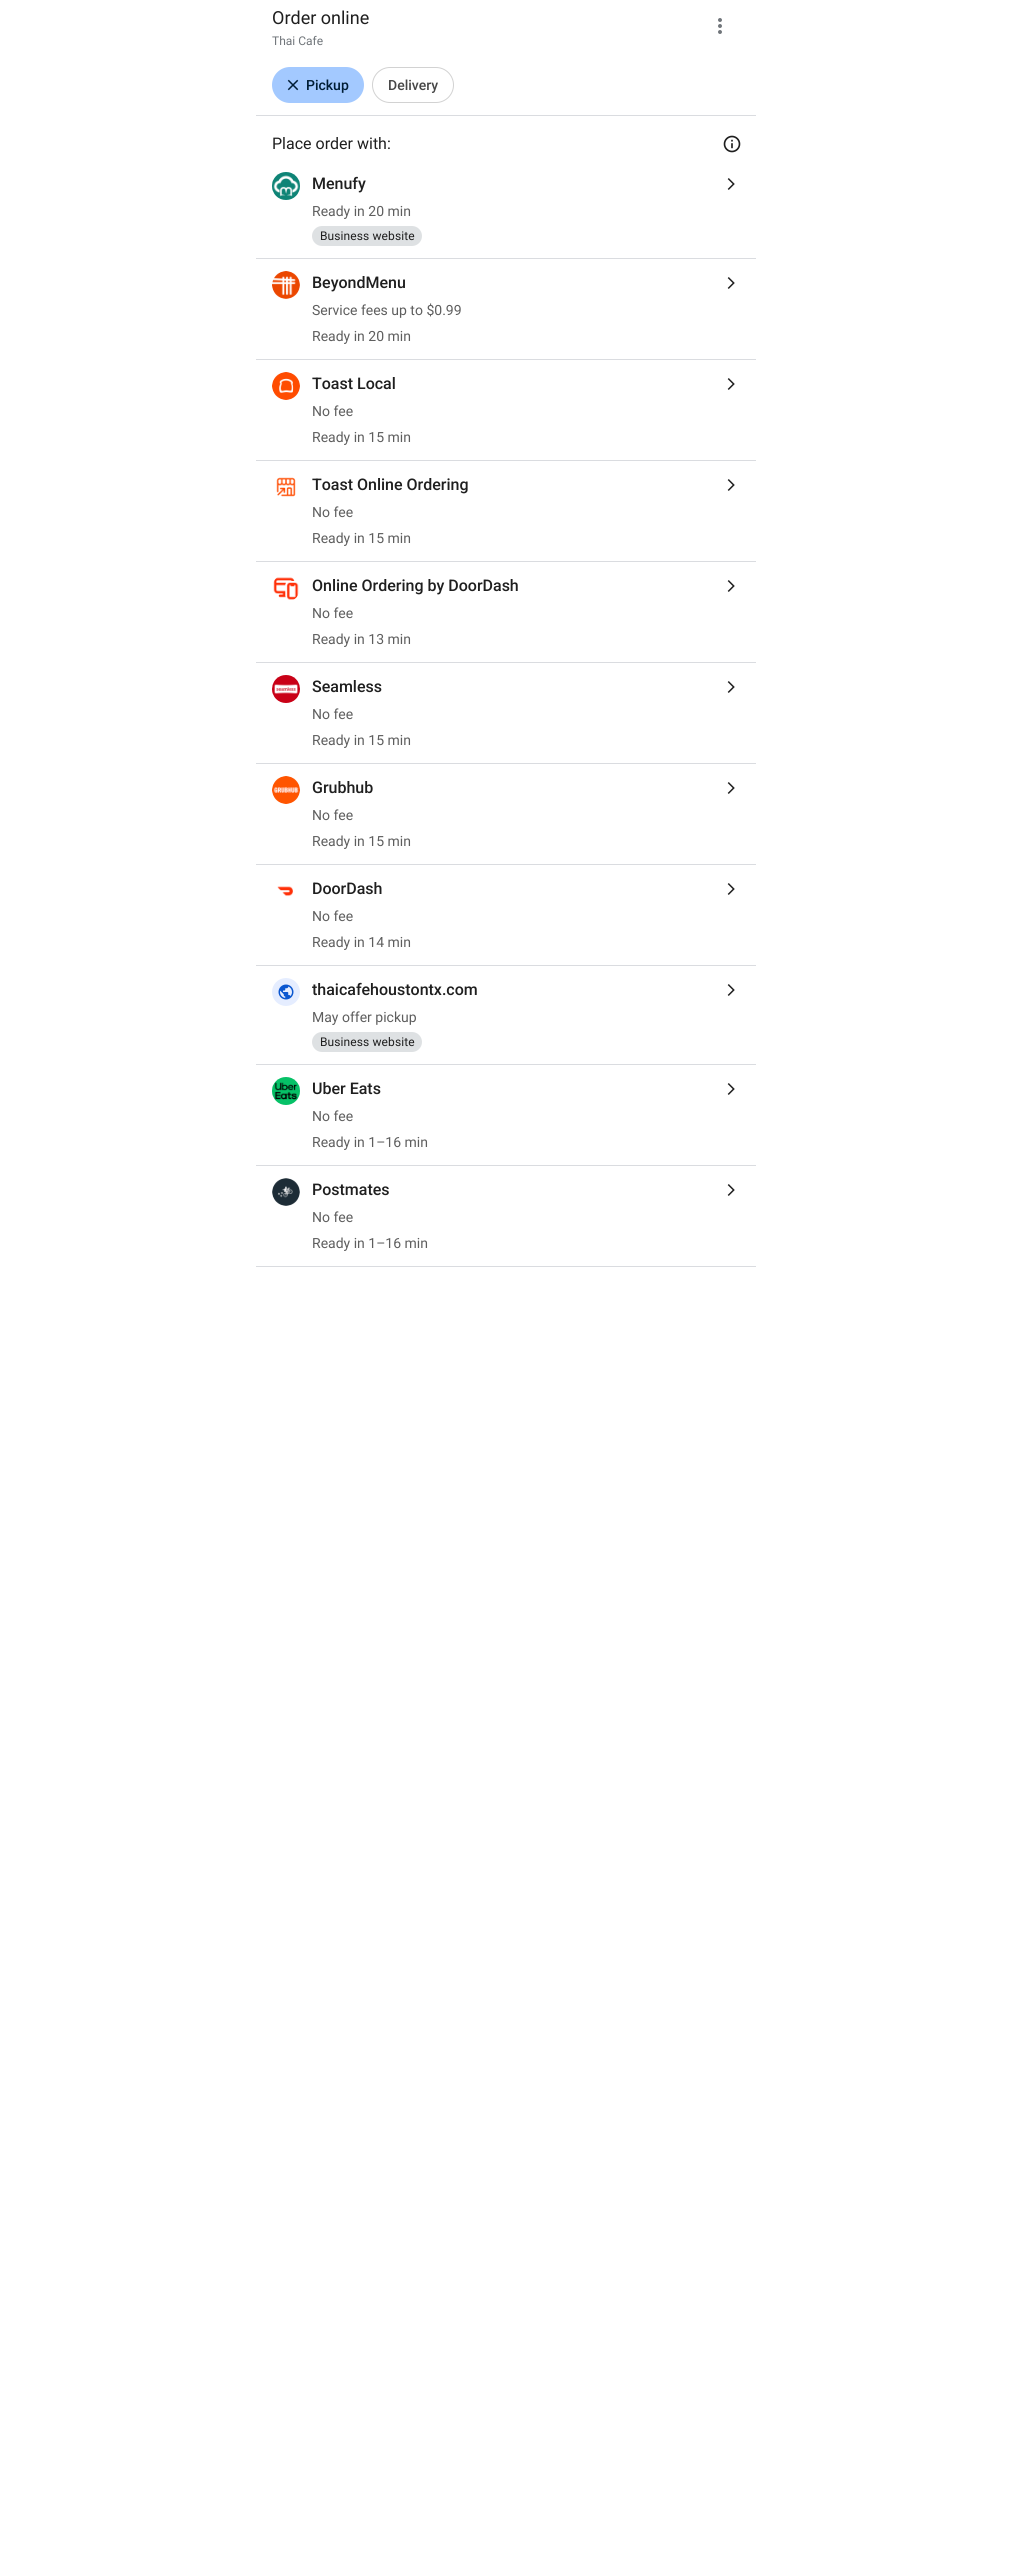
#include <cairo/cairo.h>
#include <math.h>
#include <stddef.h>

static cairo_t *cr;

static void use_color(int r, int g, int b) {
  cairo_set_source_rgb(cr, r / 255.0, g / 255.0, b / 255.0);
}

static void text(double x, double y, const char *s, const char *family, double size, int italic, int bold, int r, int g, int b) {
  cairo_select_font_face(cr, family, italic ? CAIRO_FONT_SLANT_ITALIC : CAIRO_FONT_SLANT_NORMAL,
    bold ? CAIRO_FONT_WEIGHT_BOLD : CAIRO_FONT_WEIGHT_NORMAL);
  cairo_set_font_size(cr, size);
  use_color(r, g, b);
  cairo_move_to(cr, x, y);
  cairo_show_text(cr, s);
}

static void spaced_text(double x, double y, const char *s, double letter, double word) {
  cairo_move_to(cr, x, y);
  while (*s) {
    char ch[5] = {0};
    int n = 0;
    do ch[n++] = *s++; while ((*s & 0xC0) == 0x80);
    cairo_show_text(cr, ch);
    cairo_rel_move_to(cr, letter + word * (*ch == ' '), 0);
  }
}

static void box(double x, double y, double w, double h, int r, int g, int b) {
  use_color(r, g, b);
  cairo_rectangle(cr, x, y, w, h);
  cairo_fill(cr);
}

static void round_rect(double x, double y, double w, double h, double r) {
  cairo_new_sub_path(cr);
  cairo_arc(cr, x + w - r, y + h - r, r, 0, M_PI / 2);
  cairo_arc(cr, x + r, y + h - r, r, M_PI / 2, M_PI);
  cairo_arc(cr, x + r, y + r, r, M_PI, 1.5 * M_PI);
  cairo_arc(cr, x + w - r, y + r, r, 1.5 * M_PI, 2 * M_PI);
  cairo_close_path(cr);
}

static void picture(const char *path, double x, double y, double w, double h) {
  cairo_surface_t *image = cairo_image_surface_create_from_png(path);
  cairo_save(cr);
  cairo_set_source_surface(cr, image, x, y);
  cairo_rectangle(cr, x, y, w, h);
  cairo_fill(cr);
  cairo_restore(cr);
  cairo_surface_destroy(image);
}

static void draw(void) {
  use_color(255, 255, 255);
  cairo_paint(cr);
  picture("img_01.png", 718, 18, 4, 16);
  use_color(163, 201, 255);
  round_rect(272, 67, 92, 36, 18);
  cairo_fill(cr);
  picture("img_02.png", 287, 79, 12, 12);
  round_rect(372.5, 67.5, 81, 35, 17.5);
  use_color(210, 210, 210);
  cairo_set_line_width(cr, 1);
  cairo_stroke(cr);
  box(256, 115, 500, 1, 218, 220, 224);
  picture("img_03.png", 723, 135, 18, 18);
  picture("img_04.png", 272, 172, 28, 28);
  picture("img_05.png", 727, 178, 8, 12);
  use_color(222, 225, 227);
  round_rect(312, 226, 110, 20, 10);
  cairo_fill(cr);
  box(256, 258, 500, 1, 218, 220, 224);
  picture("img_06.png", 272, 271, 28, 28);
  picture("img_05.png", 727, 277, 8, 12);
  box(256, 359, 500, 1, 218, 220, 224);
  picture("img_07.png", 272, 372, 28, 28);
  picture("img_05.png", 727, 378, 8, 12);
  box(256, 460, 500, 1, 218, 220, 224);
  picture("img_08.png", 276, 477, 20, 20);
  picture("img_05.png", 727, 479, 8, 12);
  box(256, 561, 500, 1, 218, 220, 224);
  picture("img_09.png", 273, 577, 26, 23);
  picture("img_05.png", 727, 580, 8, 12);
  box(256, 662, 500, 1, 218, 220, 224);
  picture("img_10.png", 272, 675, 28, 28);
  picture("img_05.png", 727, 681, 8, 12);
  box(256, 763, 500, 1, 218, 220, 224);
  picture("img_11.png", 272, 776, 28, 28);
  picture("img_05.png", 727, 782, 8, 12);
  box(256, 864, 500, 1, 218, 220, 224);
  picture("img_12.png", 277, 886, 16, 11);
  picture("img_05.png", 727, 883, 8, 12);
  box(256, 965, 500, 1, 218, 220, 224);
  use_color(229, 237, 255);
  cairo_arc(cr, 286, 992, 14, 0, 2 * M_PI);
  cairo_fill(cr);
  picture("img_13.png", 278, 984, 16, 16);
  picture("img_05.png", 727, 984, 8, 12);
  use_color(222, 225, 227);
  round_rect(312, 1032, 110, 20, 10);
  cairo_fill(cr);
  box(256, 1064, 500, 1, 218, 220, 224);
  picture("img_14.png", 272, 1077, 28, 28);
  picture("img_05.png", 727, 1083, 8, 12);
  box(256, 1165, 500, 1, 218, 220, 224);
  picture("img_15.png", 272, 1178, 28, 28);
  picture("img_05.png", 727, 1184, 8, 12);
  box(256, 1266, 500, 1, 218, 220, 224);
  text(272, 24, "Order online", "Roboto", 18, 0, 0, 31, 31, 31);
  text(272, 45, "Thai Cafe", "Roboto", 12, 0, 0, 112, 117, 122);
  text(306, 90, "Pickup", "Roboto Medium", 14, 0, 0, 0, 29, 53);
  text(388, 90, "Delivery", "Roboto Medium", 14, 0, 0, 71, 71, 71);
  text(272, 149, "Place order with:", "Roboto", 16, 0, 0, 31, 31, 31);
  text(312, 189, "Menufy", "Roboto Medium", 16, 0, 0, 31, 31, 31);
  text(312, 216, "Ready in 20 min", "Roboto", 14, 0, 0, 94, 94, 94);
  cairo_set_font_size(cr, 12);
  use_color(31, 31, 31);
  spaced_text(320, 240, "Business website", 0.1, 0);
  text(312, 288, "BeyondMenu", "Roboto Medium", 16, 0, 0, 31, 31, 31);
  text(312, 315, "Service fees up to $0.99", "Roboto", 14, 0, 0, 94, 94, 94);
  text(312, 341, "Ready in 20 min", "Roboto", 14, 0, 0, 94, 94, 94);
  text(312, 389, "Toast Local", "Roboto Medium", 16, 0, 0, 31, 31, 31);
  text(312, 416, "No fee", "Roboto", 14, 0, 0, 94, 94, 94);
  text(312, 442, "Ready in 15 min", "Roboto", 14, 0, 0, 94, 94, 94);
  text(312, 490, "Toast Online Ordering", "Roboto Medium", 16, 0, 0, 31, 31, 31);
  text(312, 517, "No fee", "Roboto", 14, 0, 0, 94, 94, 94);
  text(312, 543, "Ready in 15 min", "Roboto", 14, 0, 0, 94, 94, 94);
  text(312, 591, "Online Ordering by DoorDash", "Roboto Medium", 16, 0, 0, 31, 31, 31);
  text(312, 618, "No fee", "Roboto", 14, 0, 0, 94, 94, 94);
  text(312, 644, "Ready in 13 min", "Roboto", 14, 0, 0, 94, 94, 94);
  text(312, 692, "Seamless", "Roboto Medium", 16, 0, 0, 31, 31, 31);
  text(312, 719, "No fee", "Roboto", 14, 0, 0, 94, 94, 94);
  text(312, 745, "Ready in 15 min", "Roboto", 14, 0, 0, 94, 94, 94);
  text(312, 793, "Grubhub", "Roboto Medium", 16, 0, 0, 31, 31, 31);
  text(312, 820, "No fee", "Roboto", 14, 0, 0, 94, 94, 94);
  text(312, 846, "Ready in 15 min", "Roboto", 14, 0, 0, 94, 94, 94);
  text(312, 894, "DoorDash", "Roboto Medium", 16, 0, 0, 31, 31, 31);
  text(312, 921, "No fee", "Roboto", 14, 0, 0, 94, 94, 94);
  text(312, 947, "Ready in 14 min", "Roboto", 14, 0, 0, 94, 94, 94);
  text(312, 995, "thaicafehoustontx.com", "Roboto Medium", 16, 0, 0, 31, 31, 31);
  text(312, 1022, "May offer pickup", "Roboto", 14, 0, 0, 94, 94, 94);
  cairo_set_font_size(cr, 12);
  use_color(31, 31, 31);
  spaced_text(320, 1046, "Business website", 0.1, 0);
  text(312, 1094, "Uber Eats", "Roboto Medium", 16, 0, 0, 31, 31, 31);
  text(312, 1121, "No fee", "Roboto", 14, 0, 0, 94, 94, 94);
  text(312, 1147, "Ready in 1–16 min", "Roboto", 14, 0, 0, 94, 94, 94);
  text(312, 1195, "Postmates", "Roboto Medium", 16, 0, 0, 31, 31, 31);
  text(312, 1222, "No fee", "Roboto", 14, 0, 0, 94, 94, 94);
  text(312, 1248, "Ready in 1–16 min", "Roboto", 14, 0, 0, 94, 94, 94);
}

int main(void) {
  cairo_surface_t *surface = cairo_image_surface_create(CAIRO_FORMAT_RGB24, 1011, 2549);
  cr = cairo_create(surface);
  cairo_font_options_t *options = cairo_font_options_create();
  cairo_font_options_set_hint_metrics(options, CAIRO_HINT_METRICS_OFF);
  cairo_font_options_set_hint_style(options, CAIRO_HINT_STYLE_NONE);
  cairo_set_font_options(cr, options);
  cairo_set_miter_limit(cr, 4);
  draw();
  cairo_surface_write_to_png(surface, "out.png");
  cairo_font_options_destroy(options);
  cairo_destroy(cr);
  cairo_surface_destroy(surface);
  return 0;
}
